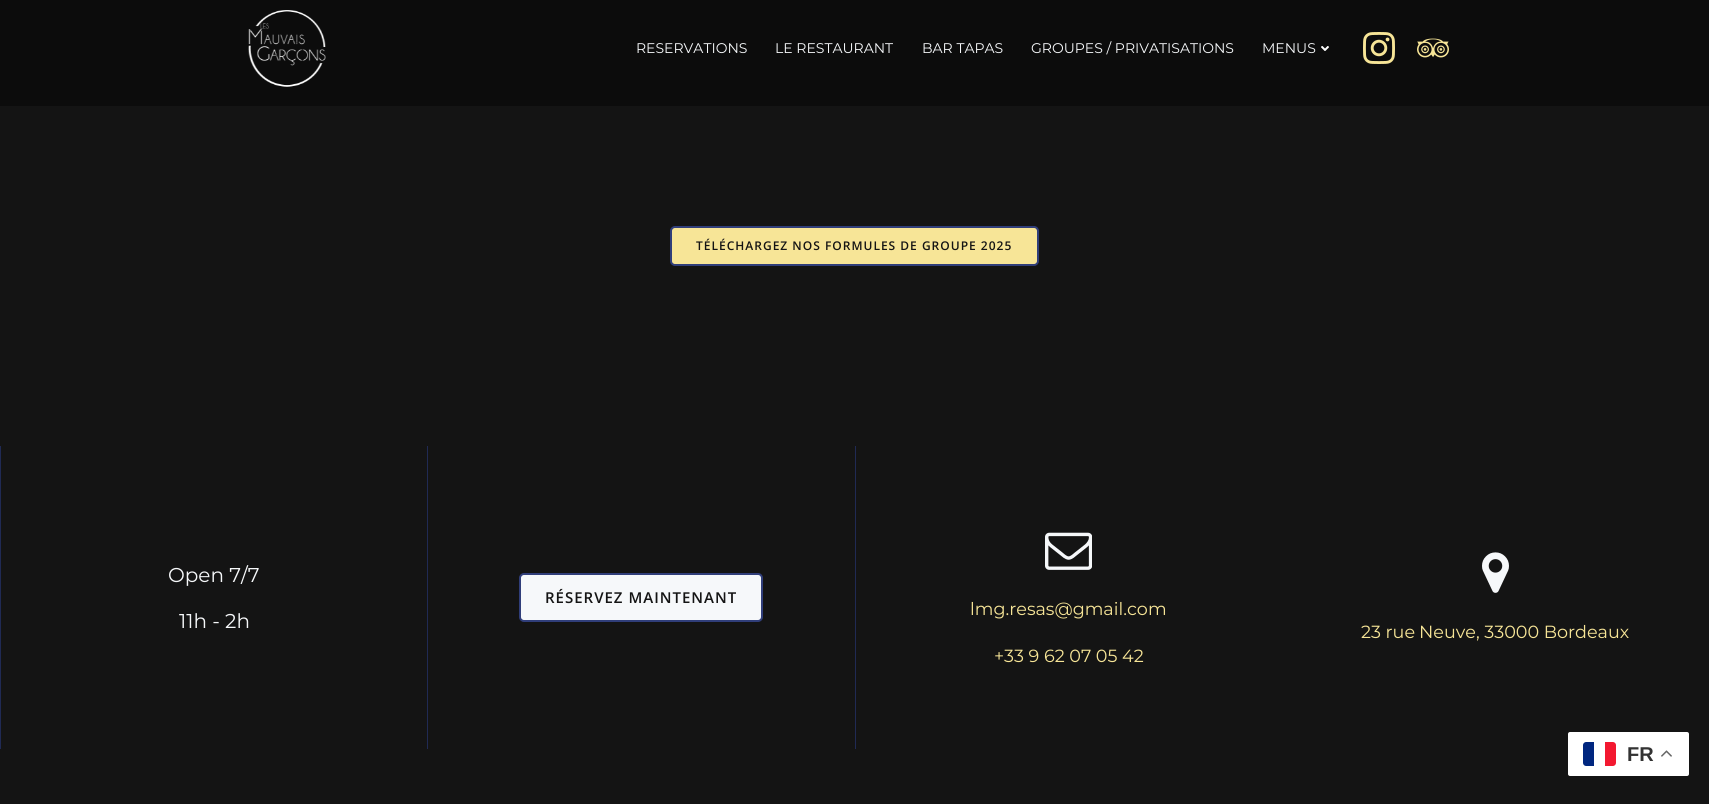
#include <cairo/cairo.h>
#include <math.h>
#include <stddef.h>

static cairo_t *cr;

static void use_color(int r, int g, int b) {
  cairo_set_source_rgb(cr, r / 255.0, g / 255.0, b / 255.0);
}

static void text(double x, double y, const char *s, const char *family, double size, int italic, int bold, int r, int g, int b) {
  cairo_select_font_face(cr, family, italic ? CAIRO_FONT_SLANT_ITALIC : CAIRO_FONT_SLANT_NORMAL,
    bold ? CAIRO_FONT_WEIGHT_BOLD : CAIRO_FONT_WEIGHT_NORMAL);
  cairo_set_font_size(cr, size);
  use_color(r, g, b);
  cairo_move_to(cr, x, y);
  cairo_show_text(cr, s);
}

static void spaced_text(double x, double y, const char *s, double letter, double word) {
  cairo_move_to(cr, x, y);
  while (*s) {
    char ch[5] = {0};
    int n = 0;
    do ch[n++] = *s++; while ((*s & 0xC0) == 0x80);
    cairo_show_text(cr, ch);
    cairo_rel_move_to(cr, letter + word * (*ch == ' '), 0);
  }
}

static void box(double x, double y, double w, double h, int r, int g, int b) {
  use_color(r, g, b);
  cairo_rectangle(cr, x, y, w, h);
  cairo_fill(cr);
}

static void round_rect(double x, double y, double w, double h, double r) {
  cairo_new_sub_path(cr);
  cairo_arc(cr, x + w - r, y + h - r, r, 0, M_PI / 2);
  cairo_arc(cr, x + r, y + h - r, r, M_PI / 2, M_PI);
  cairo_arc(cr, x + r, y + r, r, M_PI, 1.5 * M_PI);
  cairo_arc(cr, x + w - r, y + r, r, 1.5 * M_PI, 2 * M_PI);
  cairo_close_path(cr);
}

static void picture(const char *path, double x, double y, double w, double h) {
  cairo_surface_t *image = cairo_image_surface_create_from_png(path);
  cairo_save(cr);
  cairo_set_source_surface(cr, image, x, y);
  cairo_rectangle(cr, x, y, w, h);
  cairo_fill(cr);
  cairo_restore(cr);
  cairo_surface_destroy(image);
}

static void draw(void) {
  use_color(20, 20, 20);
  cairo_paint(cr);
  box(0, 0, 1709, 106, 12, 12, 12);
  picture("img_01.png", 248, 10, 78, 77);
  picture("img_02.png", 1321, 46, 8, 5);
  picture("img_03.png", 1363, 32, 32, 32);
  picture("img_04.png", 1417, 38, 32, 20);
  use_color(247, 229, 151);
  round_rect(671, 227, 367, 38, 4);
  cairo_fill_preserve(cr);
  use_color(48, 62, 122);
  cairo_stroke(cr);
  box(0, 446, 1, 303, 32, 42, 84);
  box(427, 446, 1, 303, 32, 42, 84);
  use_color(246, 248, 250);
  round_rect(520, 574, 242, 47, 4);
  cairo_fill_preserve(cr);
  use_color(48, 62, 122);
  cairo_stroke(cr);
  box(855, 446, 1, 303, 32, 42, 84);
  picture("img_05.png", 1045, 532, 47, 38);
  picture("img_06.png", 1482, 552, 27, 41);
  use_color(255, 255, 255);
  round_rect(1568, 732, 121, 44, 2);
  cairo_fill(cr);
  use_color(0, 38, 127);
  cairo_new_path(cr);
  cairo_move_to(cr, 1586, 742);
  cairo_line_to(cr, 1594, 742);
  cairo_line_to(cr, 1594, 766);
  cairo_line_to(cr, 1586, 766);
  cairo_curve_to(cr, 1584.5, 766, 1583, 764.5, 1583, 763);
  cairo_line_to(cr, 1583, 745);
  cairo_curve_to(cr, 1583, 743.5, 1584.5, 742, 1586, 742);
  cairo_close_path(cr);
  cairo_fill(cr);
  use_color(243, 24, 48);
  cairo_new_path(cr);
  cairo_move_to(cr, 1605, 742);
  cairo_line_to(cr, 1613, 742);
  cairo_curve_to(cr, 1614.5, 742, 1616, 743.5, 1616, 745);
  cairo_line_to(cr, 1616, 763);
  cairo_curve_to(cr, 1616, 764.5, 1614.5, 766, 1613, 766);
  cairo_line_to(cr, 1605, 766);
  cairo_close_path(cr);
  cairo_fill(cr);
  picture("img_07.png", 1661, 750, 11, 7);
  text(636, 53, "RESERVATIONS", "Montserrat", 14, 0, 0, 246, 248, 250);
  text(775, 53, "LE RESTAURANT", "Montserrat", 14, 0, 0, 246, 248, 250);
  text(922, 53, "BAR TAPAS", "Montserrat", 14, 0, 0, 246, 248, 250);
  text(1031, 53, "GROUPES / PRIVATISATIONS", "Montserrat", 14, 0, 0, 246, 248, 250);
  text(1262, 53, "MENUS", "Montserrat", 14, 0, 0, 246, 248, 250);
  cairo_select_font_face(cr, "Open Sans SemiBold", CAIRO_FONT_SLANT_NORMAL, CAIRO_FONT_WEIGHT_NORMAL);
  cairo_set_font_size(cr, 12);
  use_color(20, 20, 20);
  spaced_text(696, 250, "TÉLÉCHARGEZ NOS FORMULES DE GROUPE 2025", 1, 0);
  text(168, 582, "Open 7/7", "Montserrat", 20, 0, 0, 246, 248, 250);
  text(179, 628, "11h - 2h", "Montserrat", 20, 0, 0, 246, 248, 250);
  cairo_select_font_face(cr, "Open Sans SemiBold", CAIRO_FONT_SLANT_NORMAL, CAIRO_FONT_WEIGHT_NORMAL);
  cairo_set_font_size(cr, 15);
  use_color(20, 20, 20);
  spaced_text(545, 603, "RÉSERVEZ MAINTENANT", 1, 0);
  text(970, 615, "lmg.resas@gmail.com", "Montserrat", 17.6, 0, 0, 247, 229, 151);
  text(994, 662, "+33 9 62 07 05 42", "Montserrat", 17.6, 0, 0, 247, 229, 151);
  text(1361, 638, "23 rue", "Montserrat", 17.6, 0, 0, 247, 229, 151);
  text(1419, 638, "Neuve, 33000 Bordeaux", "Montserrat", 17.6, 0, 0, 247, 229, 151);
  text(1627, 761, "FR", "Liberation Sans", 20, 0, 1, 51, 51, 51);
}

int main(void) {
  cairo_surface_t *surface = cairo_image_surface_create(CAIRO_FORMAT_RGB24, 1709, 804);
  cr = cairo_create(surface);
  cairo_font_options_t *options = cairo_font_options_create();
  cairo_font_options_set_hint_metrics(options, CAIRO_HINT_METRICS_OFF);
  cairo_font_options_set_hint_style(options, CAIRO_HINT_STYLE_NONE);
  cairo_set_font_options(cr, options);
  cairo_set_miter_limit(cr, 4);
  draw();
  cairo_surface_write_to_png(surface, "out.png");
  cairo_font_options_destroy(options);
  cairo_destroy(cr);
  cairo_surface_destroy(surface);
  return 0;
}
